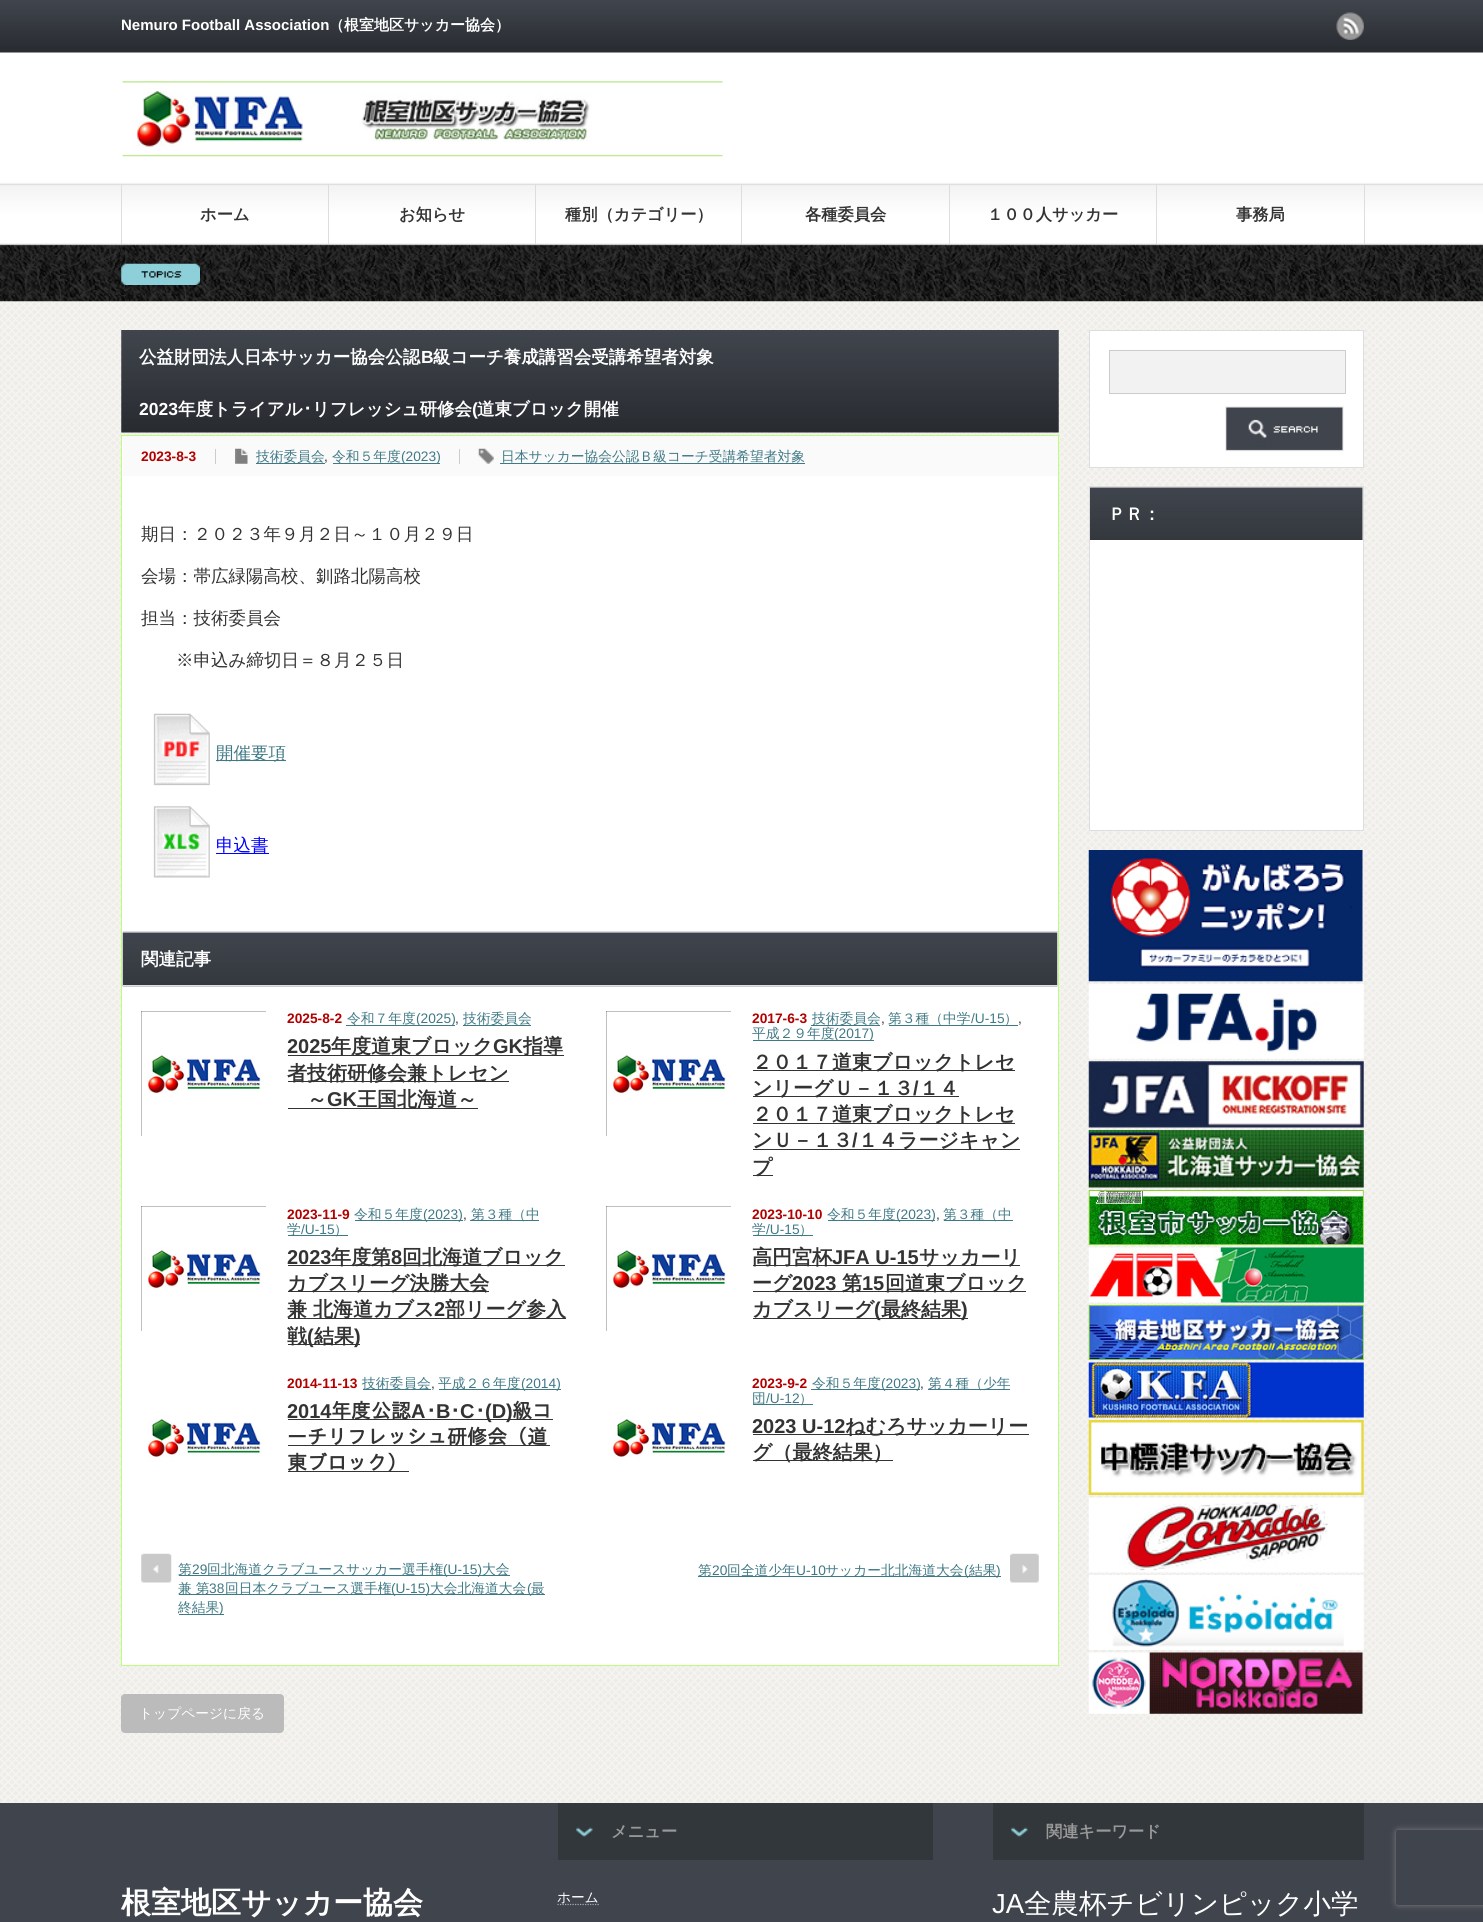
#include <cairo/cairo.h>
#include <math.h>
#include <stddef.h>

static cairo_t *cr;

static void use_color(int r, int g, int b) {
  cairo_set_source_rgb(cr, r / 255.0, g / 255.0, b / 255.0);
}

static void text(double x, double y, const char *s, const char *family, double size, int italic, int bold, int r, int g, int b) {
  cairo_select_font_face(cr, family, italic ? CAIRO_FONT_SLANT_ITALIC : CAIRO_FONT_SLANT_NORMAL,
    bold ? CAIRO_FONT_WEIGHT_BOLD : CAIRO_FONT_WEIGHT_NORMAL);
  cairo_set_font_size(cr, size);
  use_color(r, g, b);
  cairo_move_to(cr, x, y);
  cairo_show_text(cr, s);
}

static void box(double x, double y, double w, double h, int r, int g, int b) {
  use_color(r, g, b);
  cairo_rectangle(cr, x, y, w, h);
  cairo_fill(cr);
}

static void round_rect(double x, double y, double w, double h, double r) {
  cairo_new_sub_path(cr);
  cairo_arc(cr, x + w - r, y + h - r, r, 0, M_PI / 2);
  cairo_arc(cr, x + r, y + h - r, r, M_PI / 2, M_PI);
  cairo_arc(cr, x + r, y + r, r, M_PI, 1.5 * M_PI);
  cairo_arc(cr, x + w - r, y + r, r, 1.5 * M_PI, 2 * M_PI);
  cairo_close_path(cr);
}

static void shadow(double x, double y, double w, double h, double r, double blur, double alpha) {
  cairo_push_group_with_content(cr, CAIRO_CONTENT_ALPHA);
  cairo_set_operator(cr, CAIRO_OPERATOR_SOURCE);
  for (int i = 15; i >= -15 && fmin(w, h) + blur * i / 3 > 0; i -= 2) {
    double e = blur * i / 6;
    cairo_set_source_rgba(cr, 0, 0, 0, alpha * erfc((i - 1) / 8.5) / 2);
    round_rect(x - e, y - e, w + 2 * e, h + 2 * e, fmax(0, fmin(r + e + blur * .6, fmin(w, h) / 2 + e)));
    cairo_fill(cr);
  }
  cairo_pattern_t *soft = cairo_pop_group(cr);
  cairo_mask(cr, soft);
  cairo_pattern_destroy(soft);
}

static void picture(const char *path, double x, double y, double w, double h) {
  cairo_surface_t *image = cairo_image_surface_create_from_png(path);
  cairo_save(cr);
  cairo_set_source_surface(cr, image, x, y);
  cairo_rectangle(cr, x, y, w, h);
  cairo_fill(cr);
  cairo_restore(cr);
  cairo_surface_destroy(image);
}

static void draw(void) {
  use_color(255, 255, 255);
  cairo_paint(cr);
  picture("img_01.png", 0, 301, 1483, 1502);
  picture("img_02.png", 0, 0, 1483, 302);
  picture("img_03.png", 1336, 12, 28, 28);
  picture("img_04.png", 122, 81, 601, 76);
  box(1364, 185, 1, 59, 221, 221, 221);
  box(121, 185, 1, 59, 221, 221, 221);
  box(328, 185, 1, 59, 221, 221, 221);
  box(535, 185, 1, 59, 221, 221, 221);
  box(741, 185, 1, 59, 221, 221, 221);
  box(949, 185, 1, 59, 221, 221, 221);
  box(1156, 185, 1, 59, 221, 221, 221);
  picture("img_05.png", 121, 263, 79, 22);
  picture("img_06.png", 121, 330, 938, 103);
  use_color(255, 255, 255);
  cairo_rectangle(cr, 121.5, 435.5, 937, 1230);
  cairo_fill_preserve(cr);
  use_color(187, 255, 119);
  cairo_set_line_width(cr, 1);
  cairo_stroke(cr);
  box(123, 436, 935, 40, 250, 250, 250);
  box(215, 449, 1, 15, 204, 204, 204);
  picture("img_07.png", 235, 448, 13, 16);
  box(459, 449, 1, 15, 204, 204, 204);
  box(256, 463, 69, 1, 63, 121, 133);
  box(333, 463, 107, 1, 63, 121, 133);
  picture("img_08.png", 478, 448, 16, 16);
  box(500, 463, 305, 1, 63, 121, 133);
  picture("img_09.png", 153, 713, 57, 73);
  box(216, 760, 70, 1, 63, 121, 133);
  picture("img_10.png", 153, 806, 57, 72);
  box(216, 853, 53, 1, 0, 0, 255);
  picture("img_11.png", 122, 932, 936, 55);
  box(123, 931, 935, 1, 221, 221, 221);
  box(123, 985, 935, 1, 221, 221, 221);
  box(141, 1011, 125, 125, 0, 0, 0);
  picture("img_12.png", 141, 1011, 125, 125);
  box(346, 1025, 109, 1, 63, 121, 133);
  box(463, 1025, 68, 1, 63, 121, 133);
  box(288, 1055, 276, 1, 51, 51, 51);
  box(288, 1081, 221, 1, 51, 51, 51);
  box(288, 1108, 190, 1, 51, 51, 51);
  box(606, 1011, 125, 125, 0, 0, 0);
  picture("img_12.png", 606, 1011, 125, 125);
  box(811, 1025, 69, 1, 63, 121, 133);
  box(889, 1025, 129, 1, 63, 121, 133);
  box(753, 1040, 121, 1, 63, 121, 133);
  box(753, 1070, 262, 1, 51, 51, 51);
  box(753, 1096, 206, 1, 51, 51, 51);
  box(753, 1123, 262, 1, 51, 51, 51);
  box(753, 1149, 267, 1, 51, 51, 51);
  box(753, 1175, 20, 1, 51, 51, 51);
  box(141, 1206, 125, 125, 0, 0, 0);
  picture("img_13.png", 141, 1206, 125, 125);
  box(355, 1220, 108, 1, 63, 121, 133);
  box(470, 1220, 69, 1, 63, 121, 133);
  box(288, 1235, 60, 1, 63, 121, 133);
  box(288, 1265, 277, 1, 51, 51, 51);
  box(288, 1291, 201, 1, 51, 51, 51);
  box(288, 1318, 278, 1, 51, 51, 51);
  box(288, 1344, 72, 1, 51, 51, 51);
  box(606, 1206, 125, 125, 0, 0, 0);
  picture("img_13.png", 606, 1206, 125, 125);
  box(828, 1220, 107, 1, 63, 121, 133);
  box(944, 1220, 69, 1, 63, 121, 133);
  box(753, 1235, 60, 1, 63, 121, 133);
  box(753, 1265, 267, 1, 51, 51, 51);
  box(753, 1291, 273, 1, 51, 51, 51);
  box(753, 1318, 215, 1, 51, 51, 51);
  picture("img_14.png", 141, 1375, 125, 125);
  box(363, 1389, 68, 1, 63, 121, 133);
  box(439, 1389, 122, 1, 63, 121, 133);
  box(288, 1419, 265, 1, 51, 51, 51);
  box(288, 1445, 262, 1, 51, 51, 51);
  box(288, 1471, 121, 1, 51, 51, 51);
  picture("img_14.png", 606, 1375, 125, 125);
  box(811, 1389, 109, 1, 63, 121, 133);
  box(928, 1389, 82, 1, 63, 121, 133);
  box(753, 1404, 60, 1, 63, 121, 133);
  box(753, 1434, 276, 1, 51, 51, 51);
  box(753, 1460, 140, 1, 51, 51, 51);
  picture("img_15.png", 141, 1553, 31, 30);
  box(179, 1575, 331, 1, 63, 121, 133);
  box(179, 1594, 366, 1, 63, 121, 133);
  box(179, 1614, 45, 1, 63, 121, 133);
  picture("img_16.png", 1010, 1553, 29, 30);
  box(698, 1576, 303, 1, 63, 121, 133);
  use_color(187, 187, 187);
  round_rect(121, 1694, 163, 39, 4);
  cairo_fill(cr);
  use_color(255, 255, 255);
  cairo_rectangle(cr, 1089.5, 330.5, 274, 137);
  cairo_fill_preserve(cr);
  use_color(221, 221, 221);
  cairo_stroke(cr);
  use_color(242, 242, 242);
  cairo_rectangle(cr, 1109.5, 350.5, 236, 43);
  cairo_fill_preserve(cr);
  use_color(204, 204, 204);
  cairo_stroke(cr);
  picture("img_17.png", 1225, 406, 119, 46);
  use_color(255, 255, 255);
  cairo_rectangle(cr, 1089.5, 486.5, 274, 344);
  cairo_fill_preserve(cr);
  use_color(221, 221, 221);
  cairo_stroke(cr);
  picture("img_18.png", 1090, 487, 273, 53);
  picture("img_19.png", 1088, 850, 275, 132);
  picture("img_20.png", 1088, 983, 276, 76);
  picture("img_21.png", 1088, 1061, 276, 67);
  picture("img_22.png", 1088, 1130, 276, 58);
  picture("img_23.png", 1088, 1190, 276, 55);
  picture("img_24.png", 1088, 1247, 276, 56);
  picture("img_25.png", 1088, 1305, 276, 55);
  picture("img_26.png", 1088, 1362, 276, 56);
  picture("img_27.png", 1088, 1420, 276, 75);
  picture("img_28.png", 1088, 1497, 276, 76);
  picture("img_29.png", 1088, 1575, 276, 75);
  picture("img_30.png", 1088, 1652, 275, 62);
  box(0, 1803, 1483, 119, 64, 68, 77);
  box(558, 1803, 375, 57, 50, 55, 59);
  picture("img_31.png", 576, 1827, 17, 10);
  cairo_new_path(cr);
  cairo_move_to(cr, 557.5, 1904.5);
  cairo_line_to(cr, 599, 1904.5);
  use_color(170, 170, 170);
  cairo_set_line_width(cr, 1.2);
  cairo_set_dash(cr, (double[]){1.25, 1.25}, 2, 0);
  cairo_stroke(cr);
  box(993, 1803, 371, 57, 50, 55, 59);
  picture("img_32.png", 1011, 1827, 17, 10);
  cairo_save(cr);
  cairo_set_fill_rule(cr, CAIRO_FILL_RULE_EVEN_ODD);
  cairo_new_path(cr);
  cairo_move_to(cr, 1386, 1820);
  cairo_line_to(cr, 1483, 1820);
  cairo_line_to(cr, 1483, 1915);
  cairo_line_to(cr, 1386, 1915);
  cairo_close_path(cr);
  cairo_move_to(cr, 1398.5, 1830);
  cairo_line_to(cr, 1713.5, 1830);
  cairo_curve_to(cr, 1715, 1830, 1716, 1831, 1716, 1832.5);
  cairo_line_to(cr, 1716, 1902.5);
  cairo_curve_to(cr, 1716, 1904, 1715, 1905, 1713.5, 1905);
  cairo_line_to(cr, 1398.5, 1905);
  cairo_curve_to(cr, 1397, 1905, 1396, 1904, 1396, 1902.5);
  cairo_line_to(cr, 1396, 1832.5);
  cairo_curve_to(cr, 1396, 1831, 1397, 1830, 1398.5, 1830);
  cairo_close_path(cr);
  cairo_clip(cr);
  use_color(128, 128, 128);
  shadow(1396, 1830, 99, 75, 2.5, 3, 1);
  cairo_restore(cr);
  text(121, 30, "Nemuro Football Association", "Liberation Sans", 15, 0, 1, 255, 255, 255);
  text(329, 30, "（根室地区サッカー協会）", "WenQuanYi Zen Hei", 15, 0, 1, 255, 255, 255);
  text(200, 220, "ホーム", "WenQuanYi Zen Hei", 16.25, 0, 1, 51, 51, 51);
  text(399, 220, "お知らせ", "WenQuanYi Zen Hei", 16.25, 0, 1, 51, 51, 51);
  text(565, 220, "種別（カテゴリー）", "WenQuanYi Zen Hei", 16.25, 0, 1, 51, 51, 51);
  text(805, 220, "各種委員会", "WenQuanYi Zen Hei", 16.25, 0, 1, 51, 51, 51);
  text(987, 220, "１００人サッカー", "WenQuanYi Zen Hei", 16.25, 0, 1, 51, 51, 51);
  text(1236, 220, "事務局", "WenQuanYi Zen Hei", 16.25, 0, 1, 51, 51, 51);
  text(139, 363, "公益財団法人日本サッカー協会公認", "WenQuanYi Zen Hei", 17.5, 0, 1, 255, 255, 255);
  text(421, 363, "B", "Liberation Sans", 17.5, 0, 1, 255, 255, 255);
  text(433, 363, "級コーチ養成講習会受講希望者対象", "WenQuanYi Zen Hei", 17.5, 0, 1, 255, 255, 255);
  text(139, 415, "2023", "Liberation Sans", 17.5, 0, 1, 255, 255, 255);
  text(178, 415, "年度トライアル", "WenQuanYi Zen Hei", 17.5, 0, 1, 255, 255, 255);
  text(303, 415, "･", "IPAGothic", 17.5, 0, 1, 255, 255, 255);
  text(312, 415, "リフレッシュ研修会", "WenQuanYi Zen Hei", 17.5, 0, 1, 255, 255, 255);
  text(472, 415, "(", "Liberation Sans", 17.5, 0, 1, 255, 255, 255);
  text(477, 415, "道東ブロック開催", "WenQuanYi Zen Hei", 17.5, 0, 1, 255, 255, 255);
  text(141, 461, "2023-8-3", "Liberation Sans", 13.75, 0, 1, 178, 0, 0);
  text(256, 461, "技術委員会", "WenQuanYi Zen Hei Medium", 13.75, 0, 0, 63, 121, 133);
  text(324, 461, ",", "Liberation Sans", 13.75, 0, 0, 51, 51, 51);
  text(332, 461, "令和５年度", "WenQuanYi Zen Hei Medium", 13.75, 0, 0, 63, 121, 133);
  text(401, 461, "(2023)", "Liberation Sans", 13.75, 0, 0, 63, 121, 133);
  text(501, 461, "日本サッカー協会公認Ｂ級コーチ受講希望者対象", "WenQuanYi Zen Hei Medium", 13.75, 0, 0, 63, 121, 133);
  text(141, 540, "期日：２０２３年９月２日～１０月２９日", "WenQuanYi Zen Hei Medium", 17.5, 0, 0, 51, 51, 51);
  text(141, 582, "会場：帯広緑陽高校、釧路北陽高校", "WenQuanYi Zen Hei Medium", 17.5, 0, 0, 51, 51, 51);
  text(141, 624, "担当：技術委員会", "WenQuanYi Zen Hei Medium", 17.5, 0, 0, 51, 51, 51);
  text(176, 666, "※申込み締切日＝８月２５日", "WenQuanYi Zen Hei Medium", 17.5, 0, 0, 51, 51, 51);
  text(216, 759, "開催要項", "WenQuanYi Zen Hei Medium", 17.5, 0, 0, 63, 121, 133);
  text(216, 851, "申込書", "WenQuanYi Zen Hei Medium", 17.5, 0, 0, 0, 0, 255);
  text(141, 965, "関連記事", "WenQuanYi Zen Hei", 17.5, 0, 1, 255, 255, 255);
  text(287, 1023, "2025-8-2", "Liberation Sans", 13.75, 0, 1, 178, 0, 0);
  text(347, 1023, "令和７年度", "WenQuanYi Zen Hei Medium", 13.75, 0, 0, 63, 121, 133);
  text(416, 1023, "(2025)", "Liberation Sans", 13.75, 0, 0, 63, 121, 133);
  text(455, 1023, ",", "Liberation Sans", 13.75, 0, 0, 51, 51, 51);
  text(463, 1023, "技術委員会", "WenQuanYi Zen Hei Medium", 13.75, 0, 0, 63, 121, 133);
  text(287, 1053, "2025", "Liberation Sans", 20, 0, 1, 51, 51, 51);
  text(331, 1053, "年度道東ブロック", "WenQuanYi Zen Hei", 20, 0, 1, 51, 51, 51);
  text(493, 1053, "GK", "Liberation Sans", 20, 0, 1, 51, 51, 51);
  text(523, 1053, "指導", "WenQuanYi Zen Hei", 20, 0, 1, 51, 51, 51);
  text(287, 1080, "者技術研修会兼トレセン", "WenQuanYi Zen Hei", 20, 0, 1, 51, 51, 51);
  text(307, 1106, "～", "WenQuanYi Zen Hei", 20, 0, 1, 51, 51, 51);
  text(327, 1106, "GK", "Liberation Sans", 20, 0, 1, 51, 51, 51);
  text(357, 1106, "王国北海道～", "WenQuanYi Zen Hei", 20, 0, 1, 51, 51, 51);
  text(752, 1023, "2017-6-3", "Liberation Sans", 13.75, 0, 1, 178, 0, 0);
  text(812, 1023, "技術委員会", "WenQuanYi Zen Hei Medium", 13.75, 0, 0, 63, 121, 133);
  text(881, 1023, ",", "Liberation Sans", 13.75, 0, 0, 51, 51, 51);
  text(888, 1023, "第３種（中学", "WenQuanYi Zen Hei Medium", 13.75, 0, 0, 63, 121, 133);
  text(971, 1023, "/U-15", "Liberation Sans", 13.75, 0, 0, 63, 121, 133);
  text(1004, 1023, "）", "WenQuanYi Zen Hei Medium", 13.75, 0, 0, 63, 121, 133);
  text(1018, 1023, ",", "Liberation Sans", 13.75, 0, 0, 51, 51, 51);
  text(752, 1038, "平成２９年度", "WenQuanYi Zen Hei Medium", 13.75, 0, 0, 63, 121, 133);
  text(834, 1038, "(2017)", "Liberation Sans", 13.75, 0, 0, 63, 121, 133);
  text(752, 1069, "２０１７道東ブロックトレセ", "WenQuanYi Zen Hei", 20, 0, 1, 51, 51, 51);
  text(752, 1095, "ンリーグＵ－１３", "WenQuanYi Zen Hei", 20, 0, 1, 51, 51, 51);
  text(913, 1095, "/", "Liberation Sans", 20, 0, 1, 51, 51, 51);
  text(919, 1095, "１４", "WenQuanYi Zen Hei", 20, 0, 1, 51, 51, 51);
  text(752, 1121, "２０１７道東ブロックトレセ", "WenQuanYi Zen Hei", 20, 0, 1, 51, 51, 51);
  text(752, 1147, "ンＵ－１３", "WenQuanYi Zen Hei", 20, 0, 1, 51, 51, 51);
  text(852, 1147, "/", "Liberation Sans", 20, 0, 1, 51, 51, 51);
  text(858, 1147, "１４ラージキャン", "WenQuanYi Zen Hei", 20, 0, 1, 51, 51, 51);
  text(752, 1174, "プ", "WenQuanYi Zen Hei", 20, 0, 1, 51, 51, 51);
  text(287, 1219, "2023-11-9", "Liberation Sans", 13.75, 0, 1, 178, 0, 0);
  text(354, 1219, "令和５年度", "WenQuanYi Zen Hei Medium", 13.75, 0, 0, 63, 121, 133);
  text(423, 1219, "(2023)", "Liberation Sans", 13.75, 0, 0, 63, 121, 133);
  text(463, 1219, ",", "Liberation Sans", 13.75, 0, 0, 51, 51, 51);
  text(471, 1219, "第３種（中", "WenQuanYi Zen Hei Medium", 13.75, 0, 0, 63, 121, 133);
  text(287, 1234, "学", "WenQuanYi Zen Hei Medium", 13.75, 0, 0, 63, 121, 133);
  text(301, 1234, "/U-15", "Liberation Sans", 13.75, 0, 0, 63, 121, 133);
  text(334, 1234, "）", "WenQuanYi Zen Hei Medium", 13.75, 0, 0, 63, 121, 133);
  text(287, 1264, "2023", "Liberation Sans", 20, 0, 1, 51, 51, 51);
  text(331, 1264, "年度第", "WenQuanYi Zen Hei", 20, 0, 1, 51, 51, 51);
  text(391, 1264, "8", "Liberation Sans", 20, 0, 1, 51, 51, 51);
  text(402, 1264, "回北海道ブロック", "WenQuanYi Zen Hei", 20, 0, 1, 51, 51, 51);
  text(287, 1290, "カブスリーグ決勝大会", "WenQuanYi Zen Hei", 20, 0, 1, 51, 51, 51);
  text(287, 1316, "兼 北海道カブス", "WenQuanYi Zen Hei", 20, 0, 1, 51, 51, 51);
  text(434, 1316, "2", "Liberation Sans", 20, 0, 1, 51, 51, 51);
  text(445, 1316, "部リーグ参入", "WenQuanYi Zen Hei", 20, 0, 1, 51, 51, 51);
  text(287, 1343, "戦", "WenQuanYi Zen Hei", 20, 0, 1, 51, 51, 51);
  text(307, 1343, "(", "Liberation Sans", 20, 0, 1, 51, 51, 51);
  text(314, 1343, "結果", "WenQuanYi Zen Hei", 20, 0, 1, 51, 51, 51);
  text(354, 1343, ")", "Liberation Sans", 20, 0, 1, 51, 51, 51);
  text(752, 1219, "2023-10-10", "Liberation Sans", 13.75, 0, 1, 178, 0, 0);
  text(827, 1219, "令和５年度", "WenQuanYi Zen Hei Medium", 13.75, 0, 0, 63, 121, 133);
  text(896, 1219, "(2023)", "Liberation Sans", 13.75, 0, 0, 63, 121, 133);
  text(936, 1219, ",", "Liberation Sans", 13.75, 0, 0, 51, 51, 51);
  text(943, 1219, "第３種（中", "WenQuanYi Zen Hei Medium", 13.75, 0, 0, 63, 121, 133);
  text(752, 1234, "学", "WenQuanYi Zen Hei Medium", 13.75, 0, 0, 63, 121, 133);
  text(766, 1234, "/U-15", "Liberation Sans", 13.75, 0, 0, 63, 121, 133);
  text(799, 1234, "）", "WenQuanYi Zen Hei Medium", 13.75, 0, 0, 63, 121, 133);
  text(752, 1264, "高円宮杯", "WenQuanYi Zen Hei", 20, 0, 1, 51, 51, 51);
  text(832, 1264, "JFA U-15", "Liberation Sans", 20, 0, 1, 51, 51, 51);
  text(919, 1264, "サッカーリ", "WenQuanYi Zen Hei", 20, 0, 1, 51, 51, 51);
  text(752, 1290, "ーグ", "WenQuanYi Zen Hei", 20, 0, 1, 51, 51, 51);
  text(792, 1290, "2023", "Liberation Sans", 20, 0, 1, 51, 51, 51);
  text(842, 1290, "第", "WenQuanYi Zen Hei", 20, 0, 1, 51, 51, 51);
  text(862, 1290, "15", "Liberation Sans", 20, 0, 1, 51, 51, 51);
  text(885, 1290, "回道東ブロック", "WenQuanYi Zen Hei", 20, 0, 1, 51, 51, 51);
  text(752, 1316, "カブスリーグ", "WenQuanYi Zen Hei", 20, 0, 1, 51, 51, 51);
  text(874, 1316, "(", "Liberation Sans", 20, 0, 1, 51, 51, 51);
  text(881, 1316, "最終結果", "WenQuanYi Zen Hei", 20, 0, 1, 51, 51, 51);
  text(961, 1316, ")", "Liberation Sans", 20, 0, 1, 51, 51, 51);
  text(287, 1388, "2014-11-13", "Liberation Sans", 13.75, 0, 1, 178, 0, 0);
  text(362, 1388, "技術委員会", "WenQuanYi Zen Hei Medium", 13.75, 0, 0, 63, 121, 133);
  text(431, 1388, ",", "Liberation Sans", 13.75, 0, 0, 51, 51, 51);
  text(438, 1388, "平成２６年度", "WenQuanYi Zen Hei Medium", 13.75, 0, 0, 63, 121, 133);
  text(521, 1388, "(2014)", "Liberation Sans", 13.75, 0, 0, 63, 121, 133);
  text(287, 1418, "2014", "Liberation Sans", 20, 0, 1, 51, 51, 51);
  text(331, 1418, "年度公認", "IPAGothic", 20, 0, 1, 51, 51, 51);
  text(411, 1418, "A", "Liberation Sans", 20, 0, 1, 51, 51, 51);
  text(426, 1418, "･", "IPAGothic", 20, 0, 1, 51, 51, 51);
  text(436, 1418, "B", "Liberation Sans", 20, 0, 1, 51, 51, 51);
  text(450, 1418, "･", "IPAGothic", 20, 0, 1, 51, 51, 51);
  text(460, 1418, "C", "Liberation Sans", 20, 0, 1, 51, 51, 51);
  text(475, 1418, "･", "IPAGothic", 20, 0, 1, 51, 51, 51);
  text(485, 1418, "(D)", "Liberation Sans", 20, 0, 1, 51, 51, 51);
  text(512, 1418, "級コ", "IPAGothic", 20, 0, 1, 51, 51, 51);
  text(287, 1444, "ーチリフレッシュ研修会（道", "IPAGothic", 20, 0, 1, 51, 51, 51);
  text(287, 1470, "東ブロック）", "IPAGothic", 20, 0, 1, 51, 51, 51);
  text(752, 1388, "2023-9-2", "Liberation Sans", 13.75, 0, 1, 178, 0, 0);
  text(812, 1388, "令和５年度", "WenQuanYi Zen Hei Medium", 13.75, 0, 0, 63, 121, 133);
  text(881, 1388, "(2023)", "Liberation Sans", 13.75, 0, 0, 63, 121, 133);
  text(920, 1388, ",", "Liberation Sans", 13.75, 0, 0, 51, 51, 51);
  text(928, 1388, "第４種（少年", "WenQuanYi Zen Hei Medium", 13.75, 0, 0, 63, 121, 133);
  text(752, 1403, "団", "WenQuanYi Zen Hei Medium", 13.75, 0, 0, 63, 121, 133);
  text(766, 1403, "/U-12", "Liberation Sans", 13.75, 0, 0, 63, 121, 133);
  text(799, 1403, "）", "WenQuanYi Zen Hei Medium", 13.75, 0, 0, 63, 121, 133);
  text(752, 1433, "2023 U-12", "Liberation Sans", 20, 0, 1, 51, 51, 51);
  text(845, 1433, "ねむろサッカーリー", "WenQuanYi Zen Hei", 20, 0, 1, 51, 51, 51);
  text(752, 1459, "グ（最終結果）", "WenQuanYi Zen Hei", 20, 0, 1, 51, 51, 51);
  text(178, 1574, "第", "WenQuanYi Zen Hei Medium", 13.75, 0, 0, 63, 121, 133);
  text(192, 1574, "29", "Liberation Sans", 13.75, 0, 0, 63, 121, 133);
  text(207, 1574, "回北海道クラブユースサッカー選手権", "WenQuanYi Zen Hei Medium", 13.75, 0, 0, 63, 121, 133);
  text(443, 1574, "(U-15)", "Liberation Sans", 13.75, 0, 0, 63, 121, 133);
  text(482, 1574, "大会", "WenQuanYi Zen Hei Medium", 13.75, 0, 0, 63, 121, 133);
  text(178, 1593, "兼 第", "WenQuanYi Zen Hei Medium", 13.75, 0, 0, 63, 121, 133);
  text(209, 1593, "38", "Liberation Sans", 13.75, 0, 0, 63, 121, 133);
  text(225, 1593, "回日本クラブユース選手権", "WenQuanYi Zen Hei Medium", 13.75, 0, 0, 63, 121, 133);
  text(391, 1593, "(U-15)", "Liberation Sans", 13.75, 0, 0, 63, 121, 133);
  text(430, 1593, "大会北海道大会", "WenQuanYi Zen Hei Medium", 13.75, 0, 0, 63, 121, 133);
  text(527, 1593, "(", "Liberation Sans", 13.75, 0, 0, 63, 121, 133);
  text(531, 1593, "最", "WenQuanYi Zen Hei Medium", 13.75, 0, 0, 63, 121, 133);
  text(178, 1612, "終結果", "WenQuanYi Zen Hei Medium", 13.75, 0, 0, 63, 121, 133);
  text(219, 1612, ")", "Liberation Sans", 13.75, 0, 0, 63, 121, 133);
  text(698, 1575, "第", "WenQuanYi Zen Hei Medium", 13.75, 0, 0, 63, 121, 133);
  text(712, 1575, "20", "Liberation Sans", 13.75, 0, 0, 63, 121, 133);
  text(727, 1575, "回全道少年", "WenQuanYi Zen Hei Medium", 13.75, 0, 0, 63, 121, 133);
  text(796, 1575, "U-10", "Liberation Sans", 13.75, 0, 0, 63, 121, 133);
  text(825, 1575, "サッカー北北海道大会", "WenQuanYi Zen Hei Medium", 13.75, 0, 0, 63, 121, 133);
  text(964, 1575, "(", "Liberation Sans", 13.75, 0, 0, 63, 121, 133);
  text(969, 1575, "結果", "WenQuanYi Zen Hei Medium", 13.75, 0, 0, 63, 121, 133);
  text(996, 1575, ")", "Liberation Sans", 13.75, 0, 0, 63, 121, 133);
  text(139, 1718, "トップページに戻る", "WenQuanYi Zen Hei Medium", 13.75, 0, 0, 255, 255, 255);
  text(1108, 520, "ＰＲ：", "WenQuanYi Zen Hei", 17.5, 0, 1, 255, 255, 255);
  text(121, 1913, "根室地区サッカー協会", "WenQuanYi Zen Hei", 30, 0, 1, 255, 255, 255);
  text(611, 1837, "メニュー", "WenQuanYi Zen Hei", 16.25, 0, 1, 153, 153, 153);
  text(557, 1902, "ホーム", "WenQuanYi Zen Hei Medium", 13.75, 0, 0, 255, 255, 255);
  text(1046, 1837, "関連キーワード", "WenQuanYi Zen Hei", 16.25, 0, 1, 153, 153, 153);
  text(992, 1913, "JA", "Liberation Sans", 27.5, 0, 0, 255, 255, 255);
  text(1024, 1913, "全農杯チビリンピック小学", "WenQuanYi Zen Hei Medium", 27.5, 0, 0, 255, 255, 255);
}

int main(void) {
  cairo_surface_t *surface = cairo_image_surface_create(CAIRO_FORMAT_RGB24, 1483, 1922);
  cr = cairo_create(surface);
  cairo_font_options_t *options = cairo_font_options_create();
  cairo_font_options_set_hint_metrics(options, CAIRO_HINT_METRICS_OFF);
  cairo_font_options_set_hint_style(options, CAIRO_HINT_STYLE_NONE);
  cairo_set_font_options(cr, options);
  cairo_set_miter_limit(cr, 4);
  draw();
  cairo_surface_write_to_png(surface, "out.png");
  cairo_font_options_destroy(options);
  cairo_destroy(cr);
  cairo_surface_destroy(surface);
  return 0;
}
